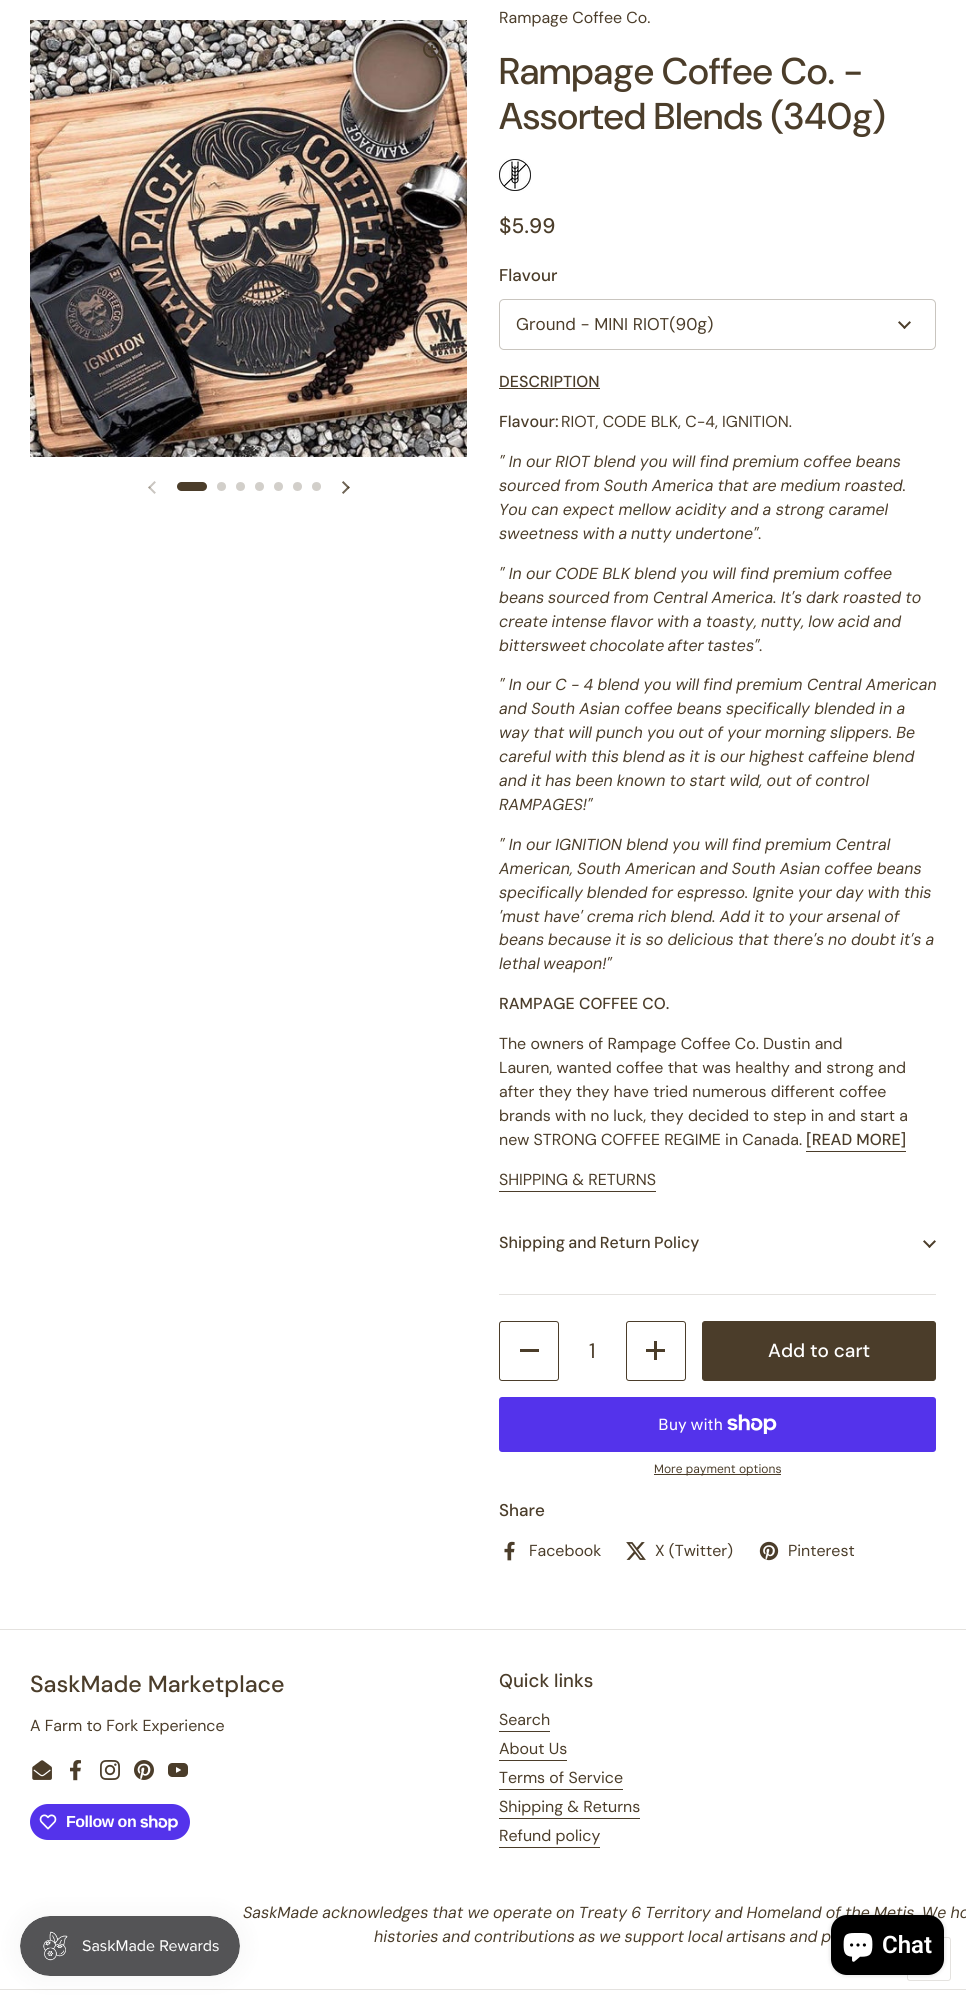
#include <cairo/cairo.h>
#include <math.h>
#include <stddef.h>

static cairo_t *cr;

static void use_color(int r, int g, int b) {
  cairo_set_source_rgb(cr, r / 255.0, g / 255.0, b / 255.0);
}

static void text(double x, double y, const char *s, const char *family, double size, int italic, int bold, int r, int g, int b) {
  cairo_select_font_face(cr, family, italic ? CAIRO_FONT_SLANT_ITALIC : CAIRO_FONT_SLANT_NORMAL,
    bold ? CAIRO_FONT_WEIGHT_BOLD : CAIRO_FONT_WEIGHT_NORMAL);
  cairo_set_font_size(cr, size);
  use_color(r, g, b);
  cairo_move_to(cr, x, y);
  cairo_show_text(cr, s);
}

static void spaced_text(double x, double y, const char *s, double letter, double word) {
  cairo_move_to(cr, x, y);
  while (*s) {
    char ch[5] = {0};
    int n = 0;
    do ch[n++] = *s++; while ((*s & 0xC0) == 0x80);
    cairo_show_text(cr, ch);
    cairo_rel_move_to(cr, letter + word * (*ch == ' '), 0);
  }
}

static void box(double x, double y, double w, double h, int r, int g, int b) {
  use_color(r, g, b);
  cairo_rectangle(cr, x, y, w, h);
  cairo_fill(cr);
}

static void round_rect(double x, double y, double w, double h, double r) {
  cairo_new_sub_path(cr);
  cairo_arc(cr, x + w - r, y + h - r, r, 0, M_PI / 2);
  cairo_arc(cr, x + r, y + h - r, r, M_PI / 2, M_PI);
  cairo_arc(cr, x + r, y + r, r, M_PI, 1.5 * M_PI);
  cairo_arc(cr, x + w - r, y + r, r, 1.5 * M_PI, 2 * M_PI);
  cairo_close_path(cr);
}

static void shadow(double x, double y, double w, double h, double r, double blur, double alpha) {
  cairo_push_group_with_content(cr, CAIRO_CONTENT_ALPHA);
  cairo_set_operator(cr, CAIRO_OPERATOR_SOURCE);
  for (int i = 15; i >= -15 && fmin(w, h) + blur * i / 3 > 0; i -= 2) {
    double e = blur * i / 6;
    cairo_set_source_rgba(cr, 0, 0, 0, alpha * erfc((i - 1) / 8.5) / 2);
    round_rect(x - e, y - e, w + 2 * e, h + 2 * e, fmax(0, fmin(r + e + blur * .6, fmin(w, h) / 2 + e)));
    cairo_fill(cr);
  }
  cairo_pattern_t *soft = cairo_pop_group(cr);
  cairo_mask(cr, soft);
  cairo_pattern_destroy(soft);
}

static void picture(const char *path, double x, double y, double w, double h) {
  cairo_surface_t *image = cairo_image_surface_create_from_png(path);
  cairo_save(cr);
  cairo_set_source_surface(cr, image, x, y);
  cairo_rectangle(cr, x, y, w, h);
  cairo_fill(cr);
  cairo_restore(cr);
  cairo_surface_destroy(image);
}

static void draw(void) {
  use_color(255, 255, 255);
  cairo_paint(cr);
  picture("img_01.png", 30, 20, 437, 437);
  picture("img_02.png", 423, 40, 20, 21);
  picture("img_03.png", 148, 481, 8, 13);
  use_color(75, 61, 42);
  round_rect(177, 482, 30, 9, 4.5);
  cairo_fill(cr);
  use_color(210, 207, 202);
  cairo_arc(cr, 221.5, 486.5, 4.5, 0, 2 * M_PI);
  cairo_fill(cr);
  cairo_arc(cr, 240.5, 486.5, 4.5, 0, 2 * M_PI);
  cairo_fill(cr);
  cairo_arc(cr, 259.5, 486.5, 4.5, 0, 2 * M_PI);
  cairo_fill(cr);
  cairo_arc(cr, 278.5, 486.5, 4.5, 0, 2 * M_PI);
  cairo_fill(cr);
  cairo_arc(cr, 297.5, 486.5, 4.5, 0, 2 * M_PI);
  cairo_fill(cr);
  cairo_arc(cr, 316.5, 486.5, 4.5, 0, 2 * M_PI);
  cairo_fill(cr);
  picture("img_04.png", 342, 481, 8, 13);
  picture("img_05.png", 499, 159, 32, 32);
  picture("img_06.png", 898, 321, 13, 8);
  round_rect(499.5, 299.5, 436, 50, 4.5);
  use_color(201, 197, 191);
  cairo_set_line_width(cr, 1);
  cairo_stroke(cr);
  box(499, 388, 101, 1, 75, 61, 42);
  box(806, 1151, 100, 1, 75, 61, 42);
  box(499, 1191, 157, 1, 75, 61, 42);
  picture("img_06.png", 923, 1240, 13, 8);
  box(499, 1294, 437, 1, 228, 226, 223);
  round_rect(499.5, 1321.5, 59, 59, 2.5);
  use_color(75, 61, 42);
  cairo_stroke(cr);
  box(520, 1349, 19, 3, 75, 61, 42);
  round_rect(626.5, 1321.5, 59, 59, 2.5);
  cairo_stroke(cr);
  box(654, 1341, 3, 19, 75, 61, 42);
  box(646, 1349, 19, 3, 75, 61, 42);
  round_rect(702.5, 1321.5, 233, 59, 2.5);
  cairo_fill_preserve(cr);
  cairo_stroke(cr);
  use_color(84, 51, 235);
  round_rect(499, 1397, 437, 55, 3);
  cairo_fill(cr);
  picture("img_07.png", 727, 1414, 50, 20);
  box(654, 1474, 127, 1, 75, 61, 42);
  picture("img_08.png", 504, 1541, 11, 20);
  picture("img_09.png", 626, 1542, 20, 18);
  picture("img_10.png", 759, 1541, 20, 20);
  box(0, 1629, 966, 1, 228, 226, 223);
  picture("img_11.png", 32, 1760, 20, 20);
  picture("img_12.png", 70, 1760, 11, 21);
  picture("img_13.png", 100, 1760, 20, 20);
  picture("img_14.png", 134, 1760, 20, 20);
  picture("img_15.png", 168, 1763, 20, 14);
  use_color(84, 51, 235);
  round_rect(30, 1804, 160, 36, 18);
  cairo_fill(cr);
  picture("img_16.png", 39, 1814, 18, 16);
  picture("img_17.png", 140, 1815, 38, 16);
  box(499, 1731, 51, 1, 75, 61, 42);
  box(499, 1760, 68, 1, 75, 61, 42);
  box(499, 1789, 124, 1, 75, 61, 42);
  box(499, 1818, 141, 1, 75, 61, 42);
  box(499, 1847, 101, 1, 75, 61, 42);
  box(0, 1989, 966, 1, 228, 226, 223);
  use_color(0, 0, 0);
  shadow(20, 1916, 220, 60, 30, 12.5, 0.05);
  picture("img_18.png", 20, 1916, 220, 60);
  round_rect(907.5, 1937.5, 43, 43, 2.5);
  use_color(228, 226, 223);
  cairo_stroke(cr);
  use_color(0, 0, 0);
  shadow(831, 1915, 113, 60, 16, 2.5, 0.15);
  text(499, 23, "Rampage Coffee Co.", "DM Sans", 15.95, 0, 0, 75, 61, 42);
  text(499, 84, "Rampage Coffee Co. -", "DM Sans Medium", 37.25, 0, 0, 75, 61, 42);
  text(499, 129, "Assorted Blends (340g)", "DM Sans Medium", 37.25, 0, 0, 75, 61, 42);
  text(499, 233, "$5.99", "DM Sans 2 Medium", 21, 0, 0, 75, 61, 42);
  text(499, 281, "Flavour", "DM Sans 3 Medium", 17, 0, 0, 75, 61, 42);
  text(516, 330, "Ground - MINI RIOT(90g)", "DM Sans 2", 17, 0, 0, 75, 61, 42);
  text(499, 387, "DESCRIPTION", "DM Sans 2 Medium", 15.95, 0, 0, 75, 61, 42);
  text(499, 427, "Flavour:", "DM Sans 2 Medium", 15.95, 0, 0, 75, 61, 42);
  text(561, 427, "RIOT, CODE BLK, C-4, IGNITION.", "DM Sans", 15.95, 0, 0, 75, 61, 42);
  text(499, 467, "\" In our RIOT blend you will find premium coffee beans", "DM Sans", 15.95, 1, 0, 75, 61, 42);
  spaced_text(499, 491, "sourced from South America that are medium roasted.", 0, -0.25);
  text(499, 515, "You can expect mellow acidity and a strong caramel", "DM Sans", 15.95, 1, 0, 75, 61, 42);
  spaced_text(499, 539, "sweetness with a nutty undertone\".", 0, -0.5);
  text(499, 579, "\" In our CODE BLK blend you will find premium coffee", "DM Sans", 15.95, 1, 0, 75, 61, 42);
  spaced_text(499, 603, "beans sourced from Central America. It's dark roasted to", 0, -0.25);
  spaced_text(499, 627, "create intense flavor with a toasty, nutty, low acid and", 0, -0.4);
  spaced_text(499, 651, "bittersweet chocolate after tastes\".", 0, -1);
  text(499, 690, "\" In our C - 4 blend you will find premium Central American", "DM Sans", 15.95, 1, 0, 75, 61, 42);
  text(499, 714, "and South Asian coffee beans specifically blended in a", "DM Sans", 15.95, 1, 0, 75, 61, 42);
  spaced_text(499, 738, "way that will punch you out of your morning slippers. Be", 0, -0.25);
  spaced_text(499, 762, "careful with this blend as it is our highest caffeine blend", 0, -0.25);
  spaced_text(499, 786, "and it has been known to start wild, out of control", 0, -0.25);
  text(499, 810, "RAMPAGES!\"", "DM Sans", 15.95, 1, 0, 75, 61, 42);
  text(499, 850, "\" In our IGNITION blend you will find premium Central", "DM Sans", 15.95, 1, 0, 75, 61, 42);
  spaced_text(499, 874, "American, South American and South Asian coffee beans", 0, -0.25);
  spaced_text(499, 898, "specifically blended for espresso. Ignite your day with this", 0, -0.25);
  spaced_text(499, 922, "'must have' crema rich blend. Add it to your arsenal of", 0, -0.25);
  spaced_text(499, 945, "beans because it is so delicious that there's no doubt it's a", 0, -0.25);
  spaced_text(499, 969, "lethal weapon!\"", 0, -1);
  text(499, 1009, "RAMPAGE COFFEE CO.", "DM Sans 2 Medium", 15.95, 0, 0, 75, 61, 42);
  text(499, 1049, "The owners of Rampage Coffee Co. Dustin and", "DM Sans", 15.95, 0, 0, 75, 61, 42);
  text(499, 1073, "Lauren, wanted coffee that was healthy and strong and", "DM Sans", 15.95, 0, 0, 75, 61, 42);
  text(499, 1097, "after they they have tried numerous different coffee", "DM Sans", 15.95, 0, 0, 75, 61, 42);
  text(499, 1121, "brands with no luck, they decided to step in and start a", "DM Sans", 15.95, 0, 0, 75, 61, 42);
  text(499, 1145, "new STRONG COFFEE REGIME in Canada.", "DM Sans", 15.95, 0, 0, 75, 61, 42);
  text(806, 1145, "[READ MORE]", "DM Sans 2 Medium", 15.95, 0, 0, 75, 61, 42);
  text(499, 1185, "SHIPPING & RETURNS", "DM Sans", 15.95, 0, 0, 75, 61, 42);
  cairo_select_font_face(cr, "DM Sans 2 Medium", CAIRO_FONT_SLANT_NORMAL, CAIRO_FONT_WEIGHT_NORMAL);
  spaced_text(499, 1248, "Shipping and Return Policy", 0, -1);
  text(589, 1358, "1", "DM Sans 3", 21, 0, 0, 75, 61, 42);
  text(768, 1357, "Add to cart", "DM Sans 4 Medium", 19, 0, 0, 255, 255, 255);
  text(658, 1430, "Buy with", "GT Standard", 16, 0, 0, 255, 255, 255);
  text(654, 1473, "More payment options", "DM Sans 2", 12, 0, 0, 75, 61, 42);
  text(499, 1516, "Share", "DM Sans 3 Medium", 17, 0, 0, 75, 61, 42);
  text(529, 1556, "Facebook", "DM Sans", 15.95, 0, 0, 75, 61, 42);
  text(655, 1556, "X (Twitter)", "DM Sans", 15.95, 0, 0, 75, 61, 42);
  text(788, 1556, "Pinterest", "DM Sans", 15.95, 0, 0, 75, 61, 42);
  text(30, 1692, "SaskMade Marketplace", "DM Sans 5 Medium", 23.25, 0, 0, 75, 61, 42);
  text(30, 1731, "A Farm to Fork Experience", "DM Sans", 15.95, 0, 0, 75, 61, 42);
  cairo_select_font_face(cr, "Liberation Sans", CAIRO_FONT_SLANT_NORMAL, CAIRO_FONT_WEIGHT_BOLD);
  cairo_set_font_size(cr, 16);
  use_color(255, 255, 255);
  spaced_text(66, 1827, "Follow on", -0.5, 0);
  text(499, 1687, "Quick links", "DM Sans 2 Medium", 18.5, 0, 0, 75, 61, 42);
  text(499, 1725, "Search", "DM Sans", 15.95, 0, 0, 75, 61, 42);
  text(499, 1754, "About Us", "DM Sans", 15.95, 0, 0, 75, 61, 42);
  text(499, 1783, "Terms of Service", "DM Sans", 15.95, 0, 0, 75, 61, 42);
  text(499, 1812, "Shipping & Returns", "DM Sans", 15.95, 0, 0, 75, 61, 42);
  text(499, 1841, "Refund policy", "DM Sans", 15.95, 0, 0, 75, 61, 42);
  cairo_select_font_face(cr, "DM Sans", CAIRO_FONT_SLANT_ITALIC, CAIRO_FONT_WEIGHT_NORMAL);
  spaced_text(243, 1918, "SaskMade acknowledges that we operate on Treaty 6 Territory and Homeland of the Metis. We ho", 0, -0.25);
  spaced_text(374, 1942, "histories and contributions as we support local artisans and p", 0, -0.5);
  use_color(0, 0, 0);
  round_rect(831, 1915, 113, 60, 16);
  cairo_fill(cr);
  picture("img_19.png", 843, 1933, 30, 29);
  text(882, 1953, "Chat", "Roboto SemiBold", 24, 0, 0, 255, 255, 255);
}

int main(void) {
  cairo_surface_t *surface = cairo_image_surface_create(CAIRO_FORMAT_RGB24, 966, 1996);
  cr = cairo_create(surface);
  cairo_font_options_t *options = cairo_font_options_create();
  cairo_font_options_set_hint_metrics(options, CAIRO_HINT_METRICS_OFF);
  cairo_font_options_set_hint_style(options, CAIRO_HINT_STYLE_NONE);
  cairo_set_font_options(cr, options);
  cairo_set_miter_limit(cr, 4);
  draw();
  cairo_surface_write_to_png(surface, "out.png");
  cairo_font_options_destroy(options);
  cairo_destroy(cr);
  cairo_surface_destroy(surface);
  return 0;
}
